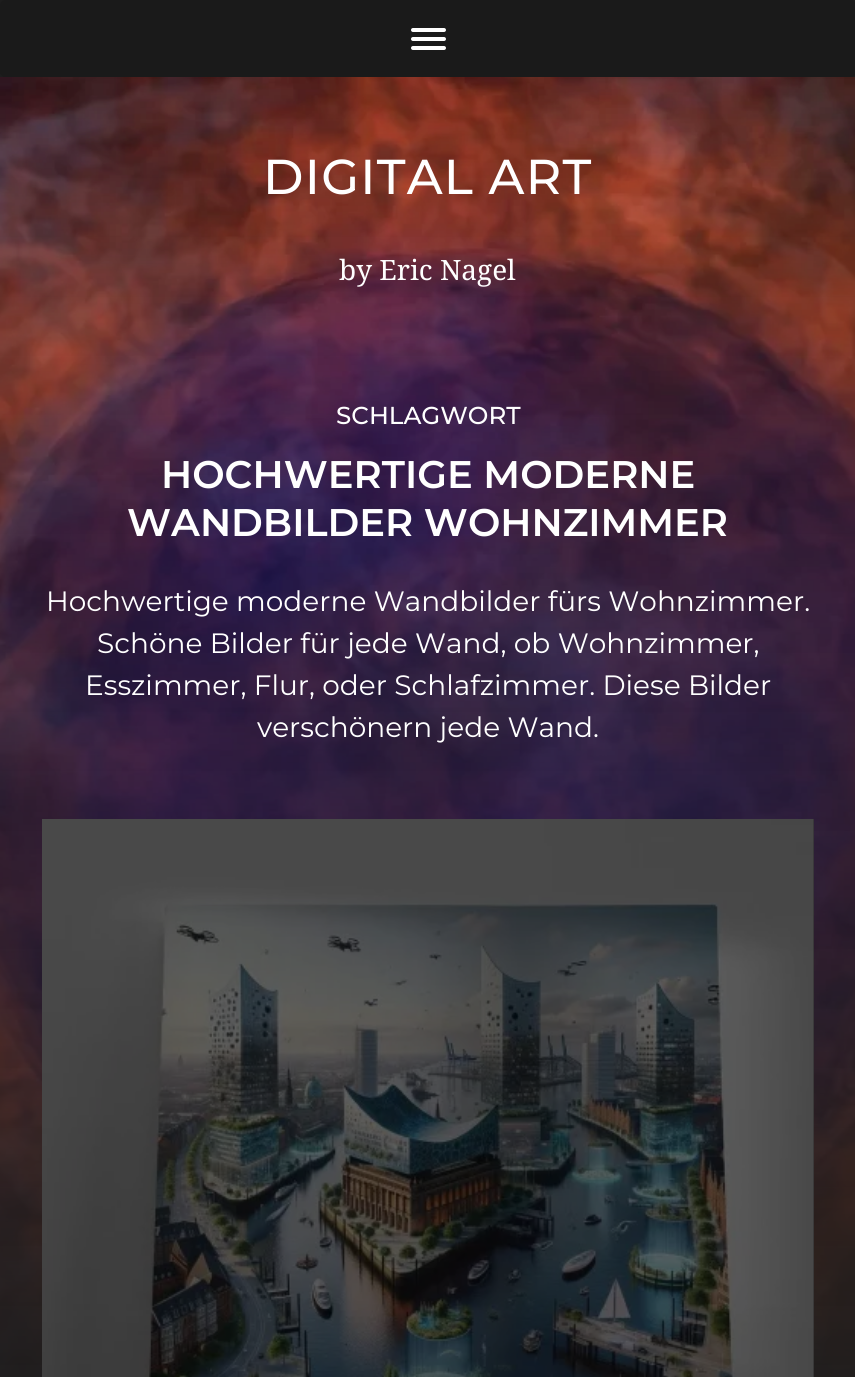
#include <cairo/cairo.h>
#include <math.h>
#include <stddef.h>

static cairo_t *cr;

static void use_color(int r, int g, int b) {
  cairo_set_source_rgb(cr, r / 255.0, g / 255.0, b / 255.0);
}

static void text(double x, double y, const char *s, const char *family, double size, int italic, int bold, int r, int g, int b) {
  cairo_select_font_face(cr, family, italic ? CAIRO_FONT_SLANT_ITALIC : CAIRO_FONT_SLANT_NORMAL,
    bold ? CAIRO_FONT_WEIGHT_BOLD : CAIRO_FONT_WEIGHT_NORMAL);
  cairo_set_font_size(cr, size);
  use_color(r, g, b);
  cairo_move_to(cr, x, y);
  cairo_show_text(cr, s);
}

static void spaced_text(double x, double y, const char *s, double letter, double word) {
  cairo_move_to(cr, x, y);
  while (*s) {
    char ch[5] = {0};
    int n = 0;
    do ch[n++] = *s++; while ((*s & 0xC0) == 0x80);
    cairo_show_text(cr, ch);
    cairo_rel_move_to(cr, letter + word * (*ch == ' '), 0);
  }
}

static void round_rect(double x, double y, double w, double h, double r) {
  cairo_new_sub_path(cr);
  cairo_arc(cr, x + w - r, y + h - r, r, 0, M_PI / 2);
  cairo_arc(cr, x + r, y + h - r, r, M_PI / 2, M_PI);
  cairo_arc(cr, x + r, y + r, r, M_PI, 1.5 * M_PI);
  cairo_arc(cr, x + w - r, y + r, r, 1.5 * M_PI, 2 * M_PI);
  cairo_close_path(cr);
}

static void picture(const char *path, double x, double y, double w, double h) {
  cairo_surface_t *image = cairo_image_surface_create_from_png(path);
  cairo_save(cr);
  cairo_set_source_surface(cr, image, x, y);
  cairo_rectangle(cr, x, y, w, h);
  cairo_fill(cr);
  cairo_restore(cr);
  cairo_surface_destroy(image);
}

static void draw(void) {
  use_color(29, 29, 29);
  cairo_paint(cr);
  use_color(26, 26, 26);
  round_rect(0, 0, 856, 77, 5);
  cairo_fill(cr);
  use_color(255, 255, 255);
  round_rect(411, 28, 35, 4, 2);
  cairo_fill(cr);
  round_rect(411, 37, 35, 4, 2);
  cairo_fill(cr);
  round_rect(411, 46, 35, 4, 2);
  cairo_fill(cr);
  picture("img_01.png", 0, 77, 855, 1300);
  picture("img_02.png", 42, 819, 772, 558);
  cairo_set_source_rgba(cr, 0, 0, 0, 0.6);
  cairo_rectangle(cr, 42, 819, 772, 558);
  cairo_fill(cr);
  cairo_select_font_face(cr, "Montserrat Thin", CAIRO_FONT_SLANT_NORMAL, CAIRO_FONT_WEIGHT_NORMAL);
  cairo_set_font_size(cr, 49);
  use_color(255, 255, 255);
  spaced_text(263, 194, "DIGITAL ART", 1.25, 0);
  text(339, 280, "by Eric Nagel", "Droid Serif", 28, 0, 0, 255, 255, 255);
  text(336, 424, "SCHLAGWORT", "Montserrat Thin", 24.5, 0, 0, 255, 255, 255);
  text(161, 488, "HOCHWERTIGE MODERNE", "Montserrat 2 Thin", 38.5, 0, 0, 255, 255, 255);
  text(127, 536, "WANDBILDER WOHNZIMMER", "Montserrat 2 Thin", 38.5, 0, 0, 255, 255, 255);
  text(46, 611, "Hochwertige moderne Wandbilder fürs Wohnzimmer.", "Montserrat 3 Thin", 28, 0, 0, 255, 255, 255);
  text(97, 653, "Schöne Bilder für jede Wand, ob Wohnzimmer,", "Montserrat 3 Thin", 28, 0, 0, 255, 255, 255);
  text(85, 695, "Esszimmer, Flur, oder Schlafzimmer. Diese Bilder", "Montserrat 3 Thin", 28, 0, 0, 255, 255, 255);
  text(257, 737, "verschönern jede Wand.", "Montserrat 3 Thin", 28, 0, 0, 255, 255, 255);
}

int main(void) {
  cairo_surface_t *surface = cairo_image_surface_create(CAIRO_FORMAT_RGB24, 855, 1377);
  cr = cairo_create(surface);
  cairo_font_options_t *options = cairo_font_options_create();
  cairo_font_options_set_hint_metrics(options, CAIRO_HINT_METRICS_OFF);
  cairo_font_options_set_hint_style(options, CAIRO_HINT_STYLE_NONE);
  cairo_set_font_options(cr, options);
  cairo_set_miter_limit(cr, 4);
  draw();
  cairo_surface_write_to_png(surface, "out.png");
  cairo_font_options_destroy(options);
  cairo_destroy(cr);
  cairo_surface_destroy(surface);
  return 0;
}
